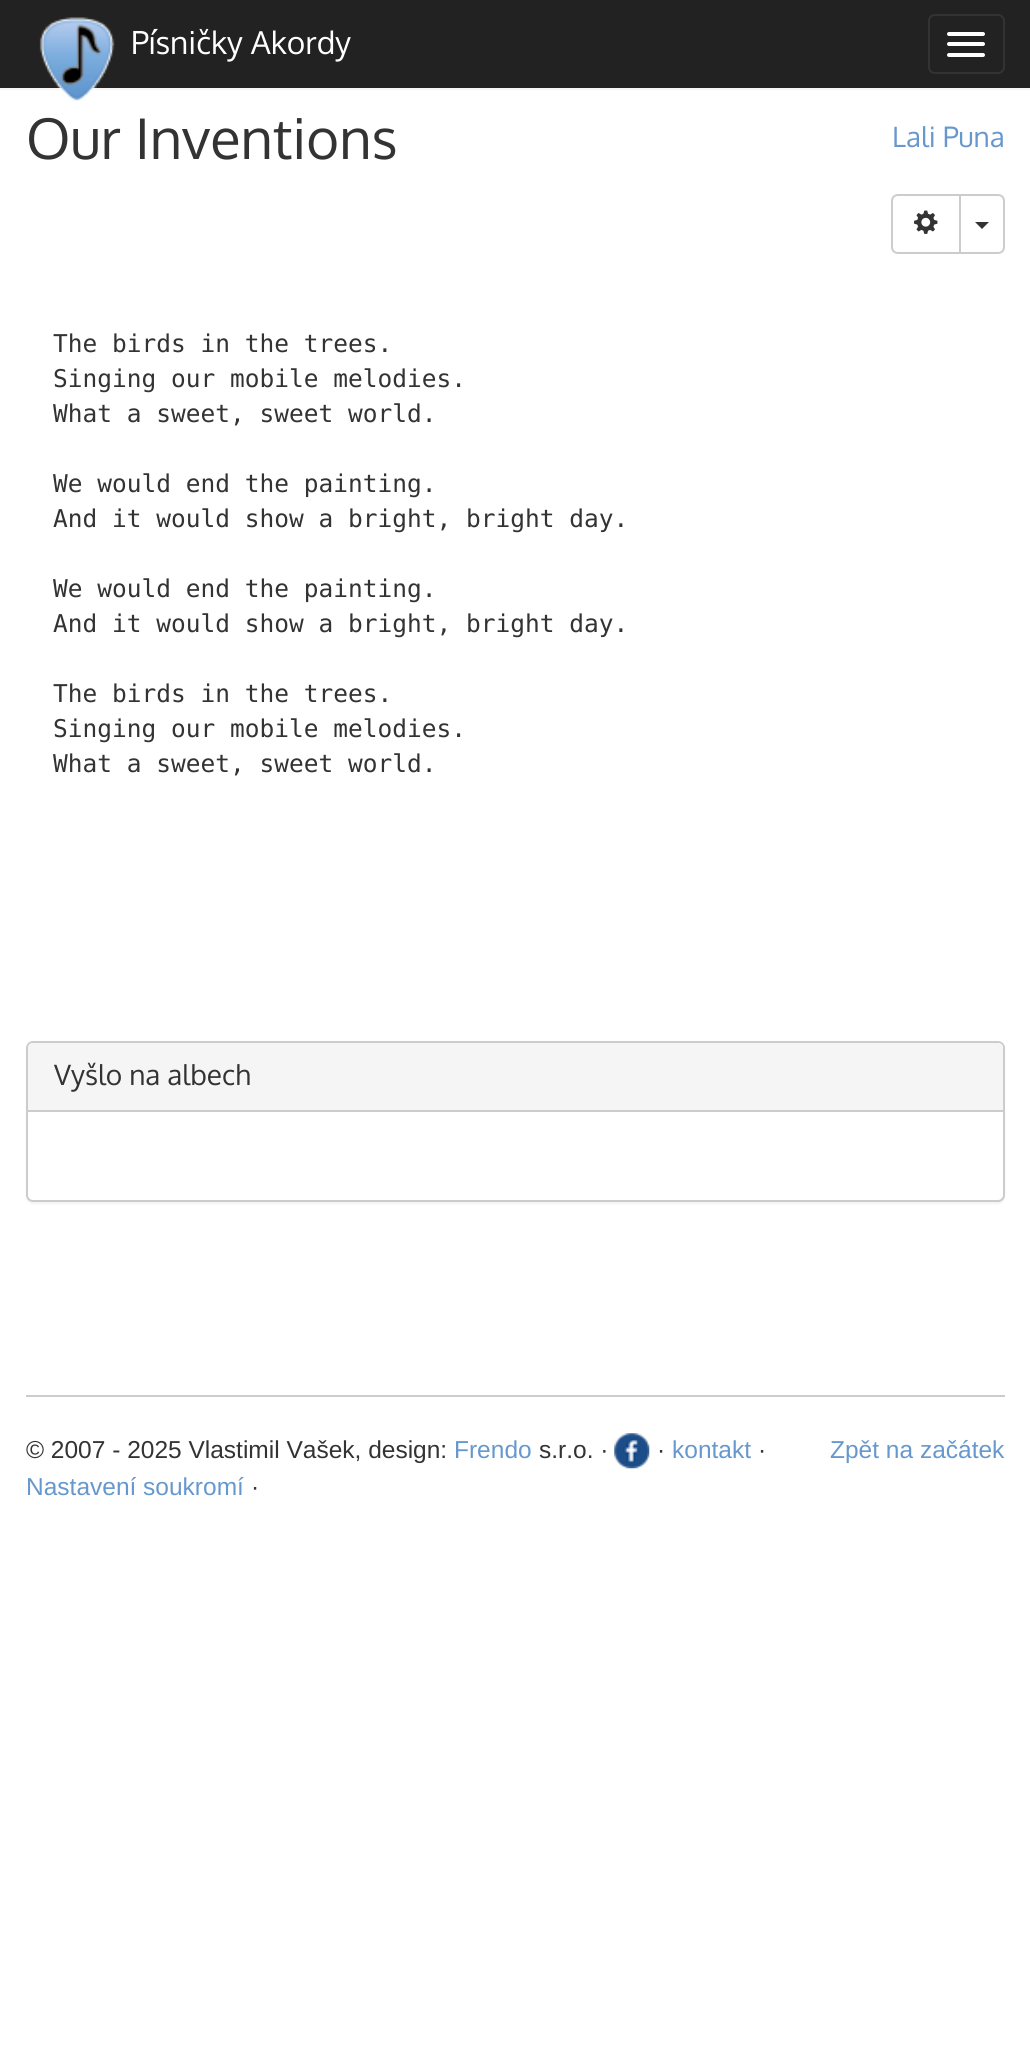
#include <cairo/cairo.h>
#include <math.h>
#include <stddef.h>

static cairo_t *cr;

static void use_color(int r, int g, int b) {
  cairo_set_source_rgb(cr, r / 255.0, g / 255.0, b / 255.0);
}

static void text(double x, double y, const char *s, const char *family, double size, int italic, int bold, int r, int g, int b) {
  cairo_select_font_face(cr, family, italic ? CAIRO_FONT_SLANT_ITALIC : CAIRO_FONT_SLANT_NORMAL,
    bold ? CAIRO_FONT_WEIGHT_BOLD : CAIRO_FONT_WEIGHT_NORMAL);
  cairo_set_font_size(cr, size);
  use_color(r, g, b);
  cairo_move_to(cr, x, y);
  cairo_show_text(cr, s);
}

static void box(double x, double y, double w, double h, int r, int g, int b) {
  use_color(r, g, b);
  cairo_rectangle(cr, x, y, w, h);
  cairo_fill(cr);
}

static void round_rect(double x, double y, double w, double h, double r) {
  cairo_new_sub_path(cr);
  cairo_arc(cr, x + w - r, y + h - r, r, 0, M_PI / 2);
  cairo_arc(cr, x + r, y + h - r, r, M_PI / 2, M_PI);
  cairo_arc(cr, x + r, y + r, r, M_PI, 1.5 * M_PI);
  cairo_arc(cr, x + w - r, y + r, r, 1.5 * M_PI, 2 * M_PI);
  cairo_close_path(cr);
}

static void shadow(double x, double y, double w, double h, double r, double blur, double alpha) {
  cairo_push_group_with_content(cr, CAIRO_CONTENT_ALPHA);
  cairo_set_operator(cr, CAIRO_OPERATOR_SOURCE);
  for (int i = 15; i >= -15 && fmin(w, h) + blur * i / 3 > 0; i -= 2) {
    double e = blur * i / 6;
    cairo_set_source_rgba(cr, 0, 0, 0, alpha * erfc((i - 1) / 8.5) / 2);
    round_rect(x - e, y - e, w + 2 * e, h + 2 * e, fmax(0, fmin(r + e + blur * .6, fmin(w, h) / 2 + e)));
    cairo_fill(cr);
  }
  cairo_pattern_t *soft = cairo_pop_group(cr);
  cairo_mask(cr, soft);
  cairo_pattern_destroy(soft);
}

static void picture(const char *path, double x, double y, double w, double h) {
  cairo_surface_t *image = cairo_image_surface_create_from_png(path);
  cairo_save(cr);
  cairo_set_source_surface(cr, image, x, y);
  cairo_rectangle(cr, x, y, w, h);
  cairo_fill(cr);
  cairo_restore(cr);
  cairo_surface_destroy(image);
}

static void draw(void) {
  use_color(255, 255, 255);
  cairo_paint(cr);
  box(0, 0, 1030, 88, 34, 34, 34);
  box(0, 88, 1030, 2, 245, 245, 245);
  picture("img_01.png", 39, 17, 76, 84);
  round_rect(929, 15, 75, 58, 6);
  use_color(51, 51, 51);
  cairo_stroke(cr);
  use_color(255, 255, 255);
  round_rect(947, 32, 38, 4, 2);
  cairo_fill(cr);
  round_rect(947, 42, 38, 4, 2);
  cairo_fill(cr);
  round_rect(947, 53, 38, 4, 2);
  cairo_fill(cr);
  cairo_new_path(cr);
  cairo_move_to(cr, 898, 195);
  cairo_line_to(cr, 960, 195);
  cairo_line_to(cr, 960, 253);
  cairo_line_to(cr, 898, 253);
  cairo_curve_to(cr, 894.5, 253, 892, 250.5, 892, 247);
  cairo_line_to(cr, 892, 201);
  cairo_curve_to(cr, 892, 197.5, 894.5, 195, 898, 195);
  cairo_close_path(cr);
  use_color(204, 204, 204);
  cairo_stroke(cr);
  picture("img_02.png", 914, 210, 24, 24);
  use_color(255, 255, 255);
  cairo_new_path(cr);
  cairo_move_to(cr, 960, 195);
  cairo_line_to(cr, 998, 195);
  cairo_curve_to(cr, 1001.5, 195, 1004, 197.5, 1004, 201);
  cairo_line_to(cr, 1004, 247);
  cairo_curve_to(cr, 1004, 250.5, 1001.5, 253, 998, 253);
  cairo_line_to(cr, 960, 253);
  cairo_close_path(cr);
  cairo_fill_preserve(cr);
  use_color(204, 204, 204);
  cairo_stroke(cr);
  use_color(51, 51, 51);
  cairo_new_path(cr);
  cairo_move_to(cr, 975, 222);
  cairo_line_to(cr, 989, 222);
  cairo_line_to(cr, 982, 229);
  cairo_close_path(cr);
  cairo_fill(cr);
  use_color(0, 0, 0);
  shadow(26, 1043, 979, 161, 7, 1, 0.05);
  use_color(255, 255, 255);
  round_rect(27, 1042, 977, 159, 6);
  cairo_fill_preserve(cr);
  use_color(204, 204, 204);
  cairo_stroke(cr);
  use_color(245, 245, 245);
  cairo_new_path(cr);
  cairo_move_to(cr, 33, 1043);
  cairo_line_to(cr, 998, 1043);
  cairo_curve_to(cr, 1001, 1043, 1003, 1045, 1003, 1048);
  cairo_line_to(cr, 1003, 1111);
  cairo_line_to(cr, 28, 1111);
  cairo_line_to(cr, 28, 1048);
  cairo_curve_to(cr, 28, 1045, 30, 1043, 33, 1043);
  cairo_close_path(cr);
  cairo_fill(cr);
  box(28, 1110, 975, 2, 204, 204, 204);
  box(26, 1395, 979, 2, 204, 204, 204);
  picture("img_03.png", 614, 1433, 36, 36);
  text(131, 54, "Písničky Akordy", "Oxygen", 31.5, 0, 0, 255, 255, 255);
  text(26, 159, "Our Inventions", "Oxygen", 56, 0, 0, 51, 51, 51);
  text(892, 147, "Lali Puna", "Oxygen", 28, 0, 0, 102, 152, 205);
  text(53, 352, "The birds in the trees.", "DejaVu Sans Mono", 24.5, 0, 0, 51, 51, 51);
  text(53, 387, "Singing our mobile melodies.", "DejaVu Sans Mono", 24.5, 0, 0, 51, 51, 51);
  text(53, 422, "What a sweet, sweet world.", "DejaVu Sans Mono", 24.5, 0, 0, 51, 51, 51);
  text(53, 492, "We would end the painting.", "DejaVu Sans Mono", 24.5, 0, 0, 51, 51, 51);
  text(53, 527, "And it would show a bright, bright day.", "DejaVu Sans Mono", 24.5, 0, 0, 51, 51, 51);
  text(53, 597, "We would end the painting.", "DejaVu Sans Mono", 24.5, 0, 0, 51, 51, 51);
  text(53, 632, "And it would show a bright, bright day.", "DejaVu Sans Mono", 24.5, 0, 0, 51, 51, 51);
  text(53, 702, "The birds in the trees.", "DejaVu Sans Mono", 24.5, 0, 0, 51, 51, 51);
  text(53, 737, "Singing our mobile melodies.", "DejaVu Sans Mono", 24.5, 0, 0, 51, 51, 51);
  text(53, 772, "What a sweet, sweet world.", "DejaVu Sans Mono", 24.5, 0, 0, 51, 51, 51);
  text(54, 1085, "Vyšlo na albech", "Oxygen", 28, 0, 0, 51, 51, 51);
  text(26, 1458, "© 2007 - 2025 Vlastimil Vašek, design:", "Liberation Sans", 24.5, 0, 0, 51, 51, 51);
  text(454, 1458, "Frendo", "Liberation Sans", 24.5, 0, 0, 102, 152, 205);
  text(539, 1458, "s.r.o. ·", "Liberation Sans", 24.5, 0, 0, 51, 51, 51);
  text(657, 1458, "·", "Liberation Sans", 24.5, 0, 0, 51, 51, 51);
  text(672, 1458, "kontakt", "Liberation Sans", 24.5, 0, 0, 102, 152, 205);
  text(758, 1458, "·", "Liberation Sans", 24.5, 0, 0, 51, 51, 51);
  text(26, 1495, "Nastavení soukromí", "Liberation Sans", 24.5, 0, 0, 102, 152, 205);
  text(251, 1495, "·", "Liberation Sans", 24.5, 0, 0, 51, 51, 51);
  text(830, 1458, "Zpět na začátek", "Liberation Sans", 24.5, 0, 0, 102, 152, 205);
}

int main(void) {
  cairo_surface_t *surface = cairo_image_surface_create(CAIRO_FORMAT_RGB24, 1030, 2060);
  cr = cairo_create(surface);
  cairo_font_options_t *options = cairo_font_options_create();
  cairo_font_options_set_hint_metrics(options, CAIRO_HINT_METRICS_OFF);
  cairo_font_options_set_hint_style(options, CAIRO_HINT_STYLE_NONE);
  cairo_set_font_options(cr, options);
  cairo_set_miter_limit(cr, 4);
  draw();
  cairo_surface_write_to_png(surface, "out.png");
  cairo_font_options_destroy(options);
  cairo_destroy(cr);
  cairo_surface_destroy(surface);
  return 0;
}
